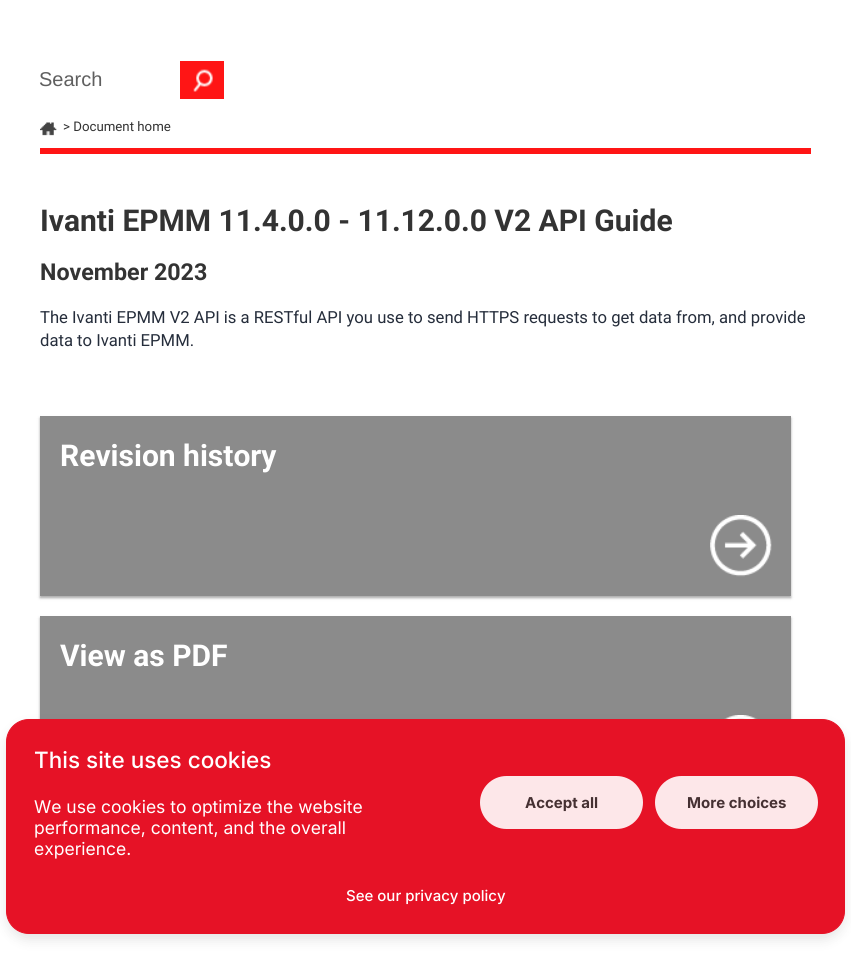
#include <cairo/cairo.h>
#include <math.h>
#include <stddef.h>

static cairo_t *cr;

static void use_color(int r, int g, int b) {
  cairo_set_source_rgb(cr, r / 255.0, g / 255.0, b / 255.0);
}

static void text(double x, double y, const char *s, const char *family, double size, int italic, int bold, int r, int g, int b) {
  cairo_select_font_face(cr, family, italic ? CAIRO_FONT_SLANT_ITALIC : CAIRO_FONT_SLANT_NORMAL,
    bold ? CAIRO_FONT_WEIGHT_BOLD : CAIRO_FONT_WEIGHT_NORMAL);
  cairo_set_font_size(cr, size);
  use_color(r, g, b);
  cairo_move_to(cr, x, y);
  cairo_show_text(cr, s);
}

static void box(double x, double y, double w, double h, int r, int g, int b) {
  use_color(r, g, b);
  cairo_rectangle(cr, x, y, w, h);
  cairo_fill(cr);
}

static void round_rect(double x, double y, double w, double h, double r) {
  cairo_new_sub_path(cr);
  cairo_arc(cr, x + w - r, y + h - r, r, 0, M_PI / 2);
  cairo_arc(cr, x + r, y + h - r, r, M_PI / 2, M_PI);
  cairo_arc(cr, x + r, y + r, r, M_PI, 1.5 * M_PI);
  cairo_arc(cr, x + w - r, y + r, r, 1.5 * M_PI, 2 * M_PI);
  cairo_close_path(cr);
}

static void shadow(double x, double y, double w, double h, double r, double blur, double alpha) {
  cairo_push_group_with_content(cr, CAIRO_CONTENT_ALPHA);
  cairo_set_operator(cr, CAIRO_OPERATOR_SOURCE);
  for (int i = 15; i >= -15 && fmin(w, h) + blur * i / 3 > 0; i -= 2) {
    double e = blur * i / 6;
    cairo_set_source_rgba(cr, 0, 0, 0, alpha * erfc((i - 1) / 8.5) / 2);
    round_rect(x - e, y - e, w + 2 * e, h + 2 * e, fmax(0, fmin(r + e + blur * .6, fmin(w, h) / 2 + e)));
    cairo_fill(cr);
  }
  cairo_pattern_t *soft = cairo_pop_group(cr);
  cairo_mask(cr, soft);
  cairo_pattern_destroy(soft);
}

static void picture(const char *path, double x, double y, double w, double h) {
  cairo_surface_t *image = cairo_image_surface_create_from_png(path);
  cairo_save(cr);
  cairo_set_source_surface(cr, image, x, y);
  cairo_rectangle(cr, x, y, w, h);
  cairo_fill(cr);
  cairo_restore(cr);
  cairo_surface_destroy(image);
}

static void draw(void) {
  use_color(255, 255, 255);
  cairo_paint(cr);
  box(180, 61, 44, 38, 255, 21, 21);
  picture("img_01.png", 193, 69, 20, 23);
  box(40, 148, 771, 6, 255, 21, 21);
  picture("img_02.png", 40, 122, 17, 14);
  use_color(0, 0, 0);
  shadow(40, 418, 751, 180, 0, 1, 0.24);
  shadow(40, 418, 751, 180, 0, 2, 0.12);
  box(40, 416, 751, 180, 139, 139, 139);
  picture("img_03.png", 710, 515, 62, 62);
  use_color(0, 0, 0);
  shadow(40, 618, 751, 180, 0, 1, 0.24);
  shadow(40, 618, 751, 180, 0, 2, 0.12);
  box(40, 616, 751, 103, 139, 139, 139);
  picture("img_04.png", 724, 715, 34, 4);
  use_color(0, 0, 0);
  shadow(6, 725, 839, 215, 23, 6, 0.1);
  use_color(230, 18, 38);
  round_rect(6.5, 719.5, 838, 214, 22.5);
  cairo_fill_preserve(cr);
  cairo_set_line_width(cr, 1);
  cairo_stroke(cr);
  use_color(253, 231, 233);
  round_rect(480, 776, 163, 53, 26.5);
  cairo_fill(cr);
  round_rect(655, 776, 163, 53, 26.5);
  cairo_fill(cr);
  text(39, 86, "Search", "Liberation Sans", 20, 0, 0, 95, 95, 95);
  text(63, 131, "> Document home", "Roboto", 13.25, 0, 0, 51, 51, 51);
  text(40, 231, "Ivanti EPMM 11.4.0.0 - 11.12.0.0 V2 API Guide", "Roboto", 30, 0, 1, 51, 51, 51);
  text(40, 280, "November 2023", "Roboto", 23.25, 0, 1, 51, 51, 51);
  text(40, 323, "The Ivanti EPMM V2 API is a RESTful API you use to send HTTPS requests to get data from, and provide", "Roboto", 16.65, 0, 0, 37, 45, 59);
  text(40, 346, "data to Ivanti EPMM.", "Roboto", 16.65, 0, 0, 37, 45, 59);
  text(60, 466, "Revision history", "Roboto", 30, 0, 1, 255, 255, 255);
  text(60, 666, "View as PDF", "Roboto", 30, 0, 1, 255, 255, 255);
  text(34, 768, "This site uses cookies", "Inter Medium", 22.5, 0, 0, 255, 255, 255);
  text(34, 813, "We use cookies to optimize the website", "Inter", 17.5, 0, 0, 255, 255, 255);
  text(34, 834, "performance, content, and the overall", "Inter", 17.5, 0, 0, 255, 255, 255);
  text(34, 855, "experience.", "Inter", 17.5, 0, 0, 255, 255, 255);
  text(525, 808, "Accept all", "Inter", 15, 0, 1, 69, 48, 50);
  text(687, 808, "More choices", "Inter", 15, 0, 1, 69, 48, 50);
  text(346, 901, "See our privacy policy", "Inter Medium", 15, 0, 0, 255, 255, 255);
}

int main(void) {
  cairo_surface_t *surface = cairo_image_surface_create(CAIRO_FORMAT_RGB24, 851, 961);
  cr = cairo_create(surface);
  cairo_font_options_t *options = cairo_font_options_create();
  cairo_font_options_set_hint_metrics(options, CAIRO_HINT_METRICS_OFF);
  cairo_font_options_set_hint_style(options, CAIRO_HINT_STYLE_NONE);
  cairo_set_font_options(cr, options);
  cairo_set_miter_limit(cr, 4);
  draw();
  cairo_surface_write_to_png(surface, "out.png");
  cairo_font_options_destroy(options);
  cairo_destroy(cr);
  cairo_surface_destroy(surface);
  return 0;
}
